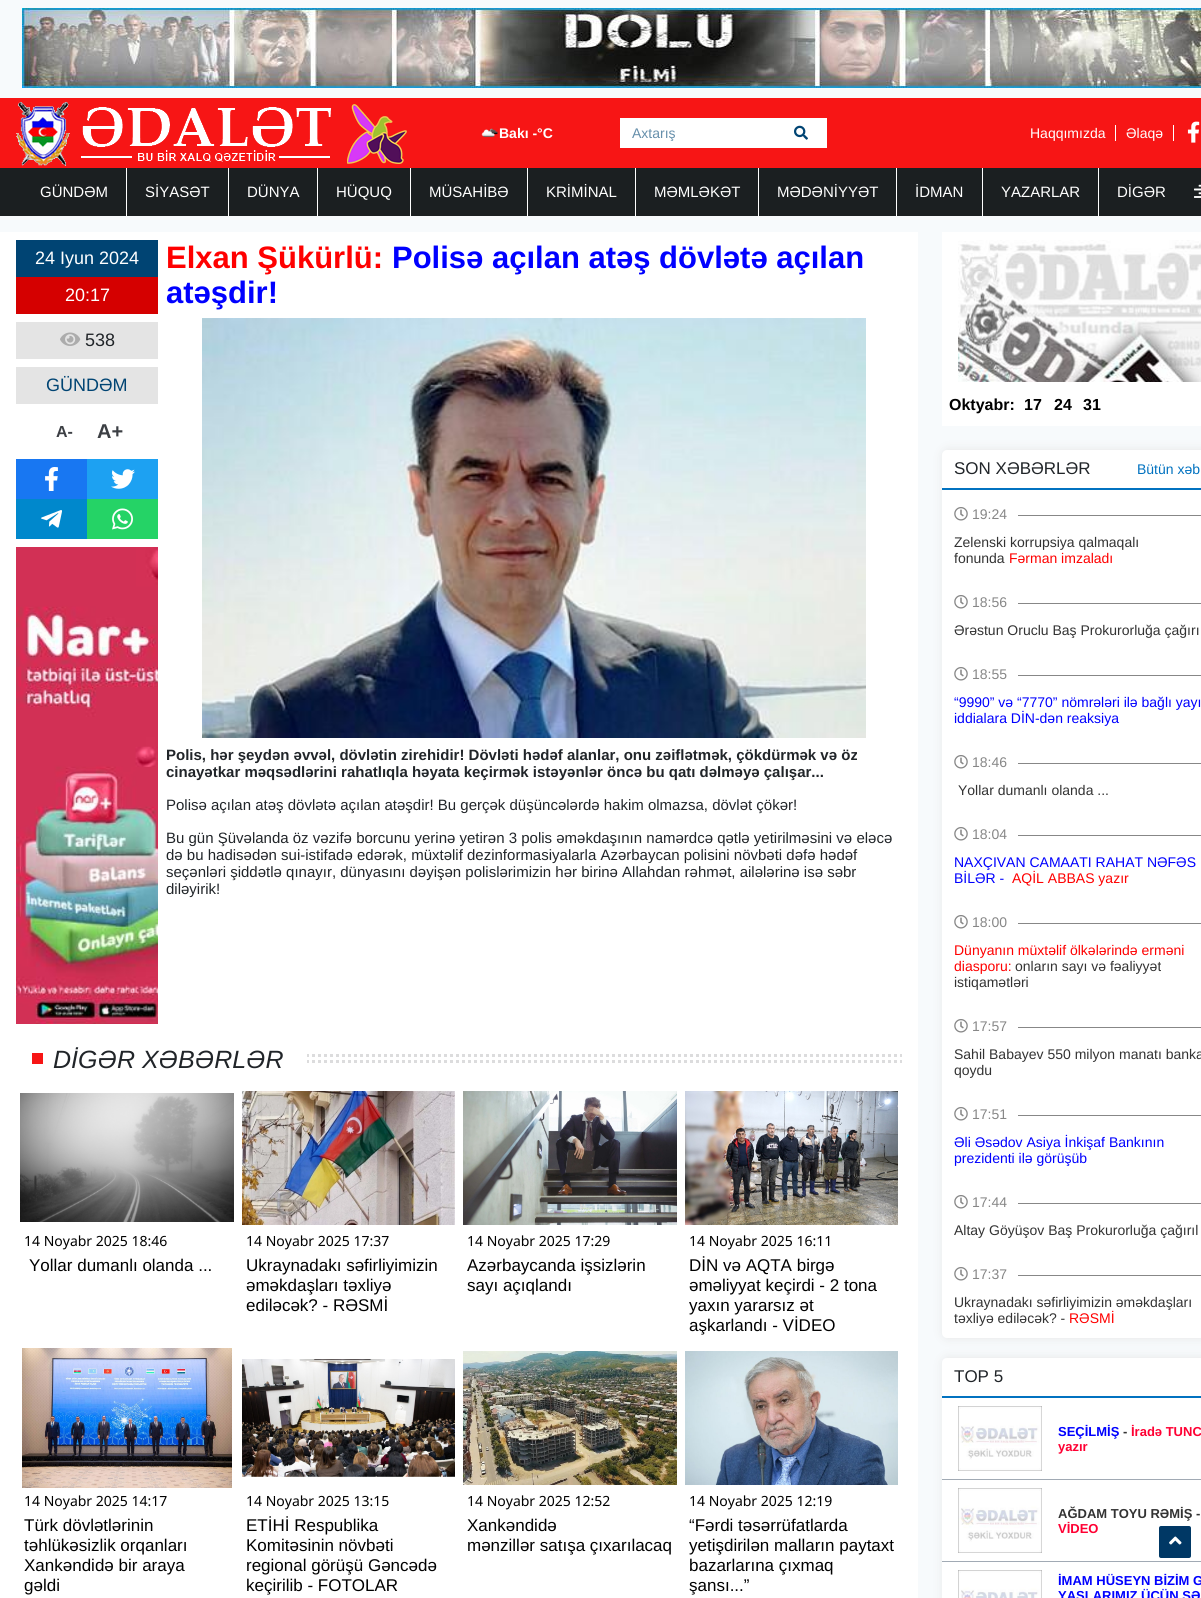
#include <cairo/cairo.h>
#include <math.h>
#include <stddef.h>

static cairo_t *cr;

static void use_color(int r, int g, int b) {
  cairo_set_source_rgb(cr, r / 255.0, g / 255.0, b / 255.0);
}

static void text(double x, double y, const char *s, const char *family, double size, int italic, int bold, int r, int g, int b) {
  cairo_select_font_face(cr, family, italic ? CAIRO_FONT_SLANT_ITALIC : CAIRO_FONT_SLANT_NORMAL,
    bold ? CAIRO_FONT_WEIGHT_BOLD : CAIRO_FONT_WEIGHT_NORMAL);
  cairo_set_font_size(cr, size);
  use_color(r, g, b);
  cairo_move_to(cr, x, y);
  cairo_show_text(cr, s);
}

static void box(double x, double y, double w, double h, int r, int g, int b) {
  use_color(r, g, b);
  cairo_rectangle(cr, x, y, w, h);
  cairo_fill(cr);
}

static void round_rect(double x, double y, double w, double h, double r) {
  cairo_new_sub_path(cr);
  cairo_arc(cr, x + w - r, y + h - r, r, 0, M_PI / 2);
  cairo_arc(cr, x + r, y + h - r, r, M_PI / 2, M_PI);
  cairo_arc(cr, x + r, y + r, r, M_PI, 1.5 * M_PI);
  cairo_arc(cr, x + w - r, y + r, r, 1.5 * M_PI, 2 * M_PI);
  cairo_close_path(cr);
}

static void shadow(double x, double y, double w, double h, double r, double blur, double alpha) {
  cairo_push_group_with_content(cr, CAIRO_CONTENT_ALPHA);
  cairo_set_operator(cr, CAIRO_OPERATOR_SOURCE);
  for (int i = 15; i >= -15 && fmin(w, h) + blur * i / 3 > 0; i -= 2) {
    double e = blur * i / 6;
    cairo_set_source_rgba(cr, 0, 0, 0, alpha * erfc((i - 1) / 8.5) / 2);
    round_rect(x - e, y - e, w + 2 * e, h + 2 * e, fmax(0, fmin(r + e + blur * .6, fmin(w, h) / 2 + e)));
    cairo_fill(cr);
  }
  cairo_pattern_t *soft = cairo_pop_group(cr);
  cairo_mask(cr, soft);
  cairo_pattern_destroy(soft);
}

static void picture(const char *path, double x, double y, double w, double h) {
  cairo_surface_t *image = cairo_image_surface_create_from_png(path);
  cairo_save(cr);
  cairo_set_source_surface(cr, image, x, y);
  cairo_rectangle(cr, x, y, w, h);
  cairo_fill(cr);
  cairo_restore(cr);
  cairo_surface_destroy(image);
}

static void draw(void) {
  use_color(247, 250, 252);
  cairo_paint(cr);
  picture("img_01.png", 22, 8, 1179, 80);
  box(0, 98, 1201, 70, 247, 21, 21);
  picture("img_02.png", 16, 102, 391, 64);
  picture("img_03.png", 481, 128, 18, 9);
  box(620, 118, 207, 30, 255, 255, 255);
  picture("img_04.png", 794, 125, 14, 15);
  box(1115, 125, 1, 16, 255, 255, 255);
  box(1173, 125, 1, 16, 255, 255, 255);
  picture("img_05.png", 1187, 121, 13, 22);
  box(0, 168, 1201, 48, 27, 31, 33);
  box(126, 168, 1, 48, 255, 255, 255);
  box(228, 168, 1, 48, 255, 255, 255);
  box(317, 168, 1, 48, 255, 255, 255);
  box(410, 168, 1, 48, 255, 255, 255);
  box(527, 168, 1, 48, 255, 255, 255);
  box(635, 168, 1, 48, 255, 255, 255);
  box(758, 168, 1, 48, 255, 255, 255);
  box(896, 168, 1, 48, 255, 255, 255);
  box(982, 168, 1, 48, 255, 255, 255);
  box(1098, 168, 1, 48, 255, 255, 255);
  picture("img_06.png", 1194, 184, 7, 14);
  box(0, 232, 918, 1366, 255, 255, 255);
  box(16, 240, 142, 37, 0, 68, 115);
  box(16, 277, 142, 37, 213, 0, 0);
  box(16, 322, 142, 37, 228, 228, 228);
  picture("img_07.png", 60, 332, 21, 14);
  box(16, 367, 142, 37, 228, 228, 228);
  box(16, 459, 71, 40, 24, 119, 242);
  picture("img_08.png", 45, 467, 13, 24);
  box(87, 459, 71, 40, 29, 161, 242);
  picture("img_09.png", 111, 469, 24, 20);
  box(16, 499, 71, 40, 0, 136, 204);
  picture("img_10.png", 41, 510, 21, 18);
  box(87, 499, 71, 40, 37, 211, 102);
  picture("img_11.png", 112, 508, 21, 22);
  picture("img_12.png", 16, 547, 142, 477);
  picture("img_13.png", 202, 318, 664, 420);
  picture("img_14.png", 307, 1054, 595, 9);
  box(32, 1053, 11, 11, 247, 21, 21);
  picture("img_15.png", 20, 1093, 214, 129);
  picture("img_16.png", 242, 1091, 213, 134);
  picture("img_17.png", 463, 1091, 214, 134);
  picture("img_18.png", 685, 1091, 213, 134);
  picture("img_19.png", 22, 1348, 210, 140);
  picture("img_20.png", 242, 1359, 213, 118);
  picture("img_21.png", 463, 1351, 214, 134);
  picture("img_22.png", 685, 1351, 213, 134);
  box(942, 232, 259, 194, 255, 255, 255);
  picture("img_23.png", 958, 240, 243, 142);
  use_color(230, 230, 230);
  shadow(943, 450, 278, 888, 5, 5, 1);
  use_color(255, 255, 255);
  round_rect(942, 450, 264, 888, 5);
  cairo_fill(cr);
  box(942, 488, 259, 2, 1, 114, 192);
  picture("img_24.png", 954, 507, 14, 14);
  box(1018, 515, 183, 1, 135, 135, 135);
  picture("img_24.png", 954, 595, 14, 14);
  box(1018, 603, 183, 1, 135, 135, 135);
  picture("img_24.png", 954, 667, 14, 14);
  box(1018, 675, 183, 1, 135, 135, 135);
  picture("img_24.png", 954, 755, 14, 14);
  box(1018, 763, 183, 1, 135, 135, 135);
  picture("img_24.png", 954, 827, 14, 14);
  box(1018, 835, 183, 1, 135, 135, 135);
  picture("img_24.png", 954, 915, 14, 14);
  box(1018, 923, 183, 1, 135, 135, 135);
  picture("img_24.png", 954, 1019, 14, 14);
  box(1018, 1027, 183, 1, 135, 135, 135);
  picture("img_24.png", 954, 1107, 14, 14);
  box(1018, 1115, 183, 1, 135, 135, 135);
  picture("img_24.png", 954, 1195, 14, 14);
  box(1018, 1203, 183, 1, 135, 135, 135);
  picture("img_24.png", 954, 1267, 14, 14);
  box(1018, 1275, 183, 1, 135, 135, 135);
  use_color(230, 230, 230);
  shadow(943, 1358, 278, 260, 5, 5, 1);
  use_color(255, 255, 255);
  cairo_new_path(cr);
  cairo_move_to(cr, 947, 1358);
  cairo_line_to(cr, 1201, 1358);
  cairo_curve_to(cr, 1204, 1358, 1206, 1360, 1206, 1363);
  cairo_line_to(cr, 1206, 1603);
  cairo_line_to(cr, 942, 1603);
  cairo_line_to(cr, 942, 1363);
  cairo_curve_to(cr, 942, 1360, 944, 1358, 947, 1358);
  cairo_close_path(cr);
  cairo_fill(cr);
  box(942, 1396, 259, 2, 1, 114, 192);
  box(942, 1479, 259, 1, 161, 170, 180);
  picture("img_25.png", 958, 1406, 84, 65);
  box(942, 1561, 259, 1, 161, 170, 180);
  picture("img_25.png", 958, 1488, 84, 65);
  picture("img_26.png", 958, 1570, 84, 28);
  use_color(0, 56, 101);
  round_rect(1159, 1526, 32, 32, 2);
  cairo_fill(cr);
  picture("img_27.png", 1169, 1536, 13, 9);
  text(499, 138, "Bakı -°C", "Liberation Sans", 14, 0, 1, 255, 255, 255);
  text(632, 138, "Axtarış", "Liberation Sans", 14, 0, 0, 102, 143, 171);
  text(1030, 138, "Haqqımızda", "Liberation Sans", 14, 0, 0, 255, 255, 255);
  text(1126, 138, "Əlaqə", "Liberation Sans", 14, 0, 0, 255, 255, 255);
  text(40, 197, "GÜNDƏM", "Liberation Sans", 15, 0, 0, 255, 255, 255);
  text(145, 197, "SİYASƏT", "Liberation Sans", 15, 0, 0, 255, 255, 255);
  text(247, 197, "DÜNYA", "Liberation Sans", 15, 0, 0, 255, 255, 255);
  text(336, 197, "HÜQUQ", "Liberation Sans", 15, 0, 0, 255, 255, 255);
  text(429, 197, "MÜSAHİBƏ", "Liberation Sans", 15, 0, 0, 255, 255, 255);
  text(546, 197, "KRİMİNAL", "Liberation Sans", 15, 0, 0, 255, 255, 255);
  text(654, 197, "MƏMLƏKƏT", "Liberation Sans", 15, 0, 0, 255, 255, 255);
  text(777, 197, "MƏDƏNİYYƏT", "Liberation Sans", 15, 0, 0, 255, 255, 255);
  text(915, 197, "İDMAN", "Liberation Sans", 15, 0, 0, 255, 255, 255);
  text(1001, 197, "YAZARLAR", "Liberation Sans", 15, 0, 0, 255, 255, 255);
  text(1117, 197, "DİGƏR", "Liberation Sans", 15, 0, 0, 255, 255, 255);
  text(35, 264, "24 Iyun 2024", "Liberation Sans", 18, 0, 0, 255, 255, 255);
  text(65, 301, "20:17", "Liberation Sans", 18, 0, 0, 255, 255, 255);
  text(85, 346, "538", "Liberation Sans", 18, 0, 0, 33, 37, 41);
  text(46, 391, "GÜNDƏM", "Liberation Sans", 18, 0, 0, 0, 68, 115);
  text(56, 437, "A-", "Liberation Sans", 16, 0, 1, 60, 63, 68);
  text(97, 438, "A+", "Liberation Sans", 20, 0, 1, 60, 63, 68);
  text(166, 268, "Elxan Şükürlü:", "Liberation Sans", 31, 0, 1, 255, 0, 0);
  text(392, 268, "Polisə açılan atəş dövlətə açılan", "Liberation Sans", 31, 0, 1, 0, 0, 255);
  text(166, 303, "atəşdir!", "Liberation Sans", 31, 0, 1, 0, 0, 255);
  text(166, 760, "Polis, hər şeydən əvvəl, dövlətin zirehidir! Dövləti hədəf alanlar, onu zəiflətmək, çökdürmək və öz", "Liberation Sans", 15, 0, 1, 33, 37, 41);
  text(166, 777, "cinayətkar məqsədlərini rahatlıqla həyata keçirmək istəyənlər öncə bu qatı dəlməyə çalışar...", "Liberation Sans", 15, 0, 1, 33, 37, 41);
  text(166, 810, "Polisə açılan atəş dövlətə açılan atəşdir! Bu gerçək düşüncələrdə hakim olmazsa, dövlət çökər!", "Liberation Sans", 15, 0, 0, 33, 37, 41);
  text(166, 843, "Bu gün Şüvəlanda öz vəzifə borcunu yerinə yetirən 3 polis əməkdaşının namərdcə qətlə yetirilməsini və eləcə", "Liberation Sans", 15, 0, 0, 33, 37, 41);
  text(166, 860, "də bu hadisədən sui-istifadə edərək, müxtəlif dezinformasiyalarla Azərbaycan polisini növbəti dəfə hədəf", "Liberation Sans", 15, 0, 0, 33, 37, 41);
  text(166, 877, "seçənləri şiddətlə qınayır, dünyasını dəyişən polislərimizin hər birinə Allahdan rəhmət, ailələrinə isə səbr", "Liberation Sans", 15, 0, 0, 33, 37, 41);
  text(166, 894, "diləyirik!", "Liberation Sans", 15, 0, 0, 33, 37, 41);
  text(53, 1068, "DİGƏR XƏBƏRLƏR", "Liberation Sans", 25, 1, 0, 33, 37, 41);
  text(24, 1246, "14 Noyabr 2025 18:46", "Noto Sans", 14, 0, 0, 0, 0, 0);
  text(29, 1271, "Yollar dumanlı olanda ...", "Liberation Sans", 17, 0, 0, 0, 0, 0);
  text(246, 1246, "14 Noyabr 2025 17:37", "Noto Sans", 14, 0, 0, 0, 0, 0);
  text(246, 1271, "Ukraynadakı səfirliyimizin", "Liberation Sans", 17, 0, 0, 0, 0, 0);
  text(246, 1291, "əməkdaşları təxliyə", "Liberation Sans", 17, 0, 0, 0, 0, 0);
  text(246, 1311, "ediləcək? - RƏSMİ", "Liberation Sans", 17, 0, 0, 0, 0, 0);
  text(467, 1246, "14 Noyabr 2025 17:29", "Noto Sans", 14, 0, 0, 0, 0, 0);
  text(467, 1271, "Azərbaycanda işsizlərin", "Liberation Sans", 17, 0, 0, 0, 0, 0);
  text(467, 1291, "sayı açıqlandı", "Liberation Sans", 17, 0, 0, 0, 0, 0);
  text(689, 1246, "14 Noyabr 2025 16:11", "Noto Sans", 14, 0, 0, 0, 0, 0);
  text(689, 1271, "DİN və AQTA birgə", "Liberation Sans", 17, 0, 0, 0, 0, 0);
  text(689, 1291, "əməliyyat keçirdi - 2 tona", "Liberation Sans", 17, 0, 0, 0, 0, 0);
  text(689, 1311, "yaxın yararsız ət", "Liberation Sans", 17, 0, 0, 0, 0, 0);
  text(689, 1331, "aşkarlandı - VİDEO", "Liberation Sans", 17, 0, 0, 0, 0, 0);
  text(24, 1506, "14 Noyabr 2025 14:17", "Noto Sans", 14, 0, 0, 0, 0, 0);
  text(24, 1531, "Türk dövlətlərinin", "Liberation Sans", 17, 0, 0, 0, 0, 0);
  text(24, 1551, "təhlükəsizlik orqanları", "Liberation Sans", 17, 0, 0, 0, 0, 0);
  text(24, 1571, "Xankəndidə bir araya", "Liberation Sans", 17, 0, 0, 0, 0, 0);
  text(24, 1591, "gəldi", "Liberation Sans", 17, 0, 0, 0, 0, 0);
  text(246, 1506, "14 Noyabr 2025 13:15", "Noto Sans", 14, 0, 0, 0, 0, 0);
  text(246, 1531, "ETİHİ Respublika", "Liberation Sans", 17, 0, 0, 0, 0, 0);
  text(246, 1551, "Komitəsinin növbəti", "Liberation Sans", 17, 0, 0, 0, 0, 0);
  text(246, 1571, "regional görüşü Gəncədə", "Liberation Sans", 17, 0, 0, 0, 0, 0);
  text(246, 1591, "keçirilib - FOTOLAR", "Liberation Sans", 17, 0, 0, 0, 0, 0);
  text(467, 1506, "14 Noyabr 2025 12:52", "Noto Sans", 14, 0, 0, 0, 0, 0);
  text(467, 1531, "Xankəndidə", "Liberation Sans", 17, 0, 0, 0, 0, 0);
  text(467, 1551, "mənzillər satışa çıxarılacaq", "Liberation Sans", 17, 0, 0, 0, 0, 0);
  text(689, 1506, "14 Noyabr 2025 12:19", "Noto Sans", 14, 0, 0, 0, 0, 0);
  text(689, 1531, "“Fərdi təsərrüfatlarda", "Liberation Sans", 17, 0, 0, 0, 0, 0);
  text(689, 1551, "yetişdirilən malların paytaxt", "Liberation Sans", 17, 0, 0, 0, 0, 0);
  text(689, 1571, "bazarlarına çıxmaq", "Liberation Sans", 17, 0, 0, 0, 0, 0);
  text(689, 1591, "şansı...”", "Liberation Sans", 17, 0, 0, 0, 0, 0);
  text(949, 410, "Oktyabr:", "Liberation Sans", 16, 0, 1, 0, 0, 0);
  text(1024, 410, "17", "Liberation Sans", 16, 0, 1, 0, 0, 0);
  text(1054, 410, "24", "Liberation Sans", 16, 0, 1, 0, 0, 0);
  text(1083, 410, "31", "Liberation Sans", 16, 0, 1, 0, 0, 0);
  text(954, 474, "SON XƏBƏRLƏR", "Liberation Sans", 17, 0, 0, 33, 37, 41);
  text(1137, 474, "Bütün xəb", "Liberation Sans", 14, 0, 0, 1, 114, 192);
  text(972, 519, "19:24", "Liberation Sans", 14, 0, 0, 135, 135, 135);
  text(954, 547, "Zelenski korrupsiya qalmaqalı", "Liberation Sans", 14, 0, 0, 51, 51, 51);
  text(954, 563, "fonunda", "Liberation Sans", 14, 0, 0, 51, 51, 51);
  text(1009, 563, "Fərman imzaladı", "Liberation Sans", 14, 0, 0, 255, 0, 0);
  text(972, 607, "18:56", "Liberation Sans", 14, 0, 0, 135, 135, 135);
  text(954, 635, "Ərəstun Oruclu Baş Prokurorluğa çağırı", "Liberation Sans", 14, 0, 0, 51, 51, 51);
  text(972, 679, "18:55", "Liberation Sans", 14, 0, 0, 135, 135, 135);
  text(954, 707, "“9990” və “7770” nömrələri ilə bağlı yayı", "Liberation Sans", 14, 0, 0, 0, 0, 255);
  text(954, 723, "iddialara DİN-dən reaksiya", "Liberation Sans", 14, 0, 0, 0, 0, 255);
  text(972, 767, "18:46", "Liberation Sans", 14, 0, 0, 135, 135, 135);
  text(958, 795, "Yollar dumanlı olanda ...", "Liberation Sans", 14, 0, 0, 51, 51, 51);
  text(972, 839, "18:04", "Liberation Sans", 14, 0, 0, 135, 135, 135);
  text(954, 867, "NAXÇIVAN CAMAATI RAHAT NƏFƏS", "Liberation Sans", 14, 0, 0, 0, 0, 255);
  text(954, 883, "BİLƏR -", "Liberation Sans", 14, 0, 0, 0, 0, 255);
  text(1012, 883, "AQİL ABBAS yazır", "Liberation Sans", 14, 0, 0, 255, 0, 0);
  text(972, 927, "18:00", "Liberation Sans", 14, 0, 0, 135, 135, 135);
  text(954, 955, "Dünyanın müxtəlif ölkələrində erməni", "Liberation Sans", 14, 0, 0, 255, 0, 0);
  text(954, 971, "diasporu:", "Liberation Sans", 14, 0, 0, 255, 0, 0);
  text(1015, 971, "onların sayı və fəaliyyət", "Liberation Sans", 14, 0, 0, 51, 51, 51);
  text(954, 987, "istiqamətləri", "Liberation Sans", 14, 0, 0, 51, 51, 51);
  text(972, 1031, "17:57", "Liberation Sans", 14, 0, 0, 135, 135, 135);
  text(954, 1059, "Sahil Babayev 550 milyon manatı banka", "Liberation Sans", 14, 0, 0, 51, 51, 51);
  text(954, 1075, "qoydu", "Liberation Sans", 14, 0, 0, 51, 51, 51);
  text(972, 1119, "17:51", "Liberation Sans", 14, 0, 0, 135, 135, 135);
  text(954, 1147, "Əli Əsədov Asiya İnkişaf Bankının", "Liberation Sans", 14, 0, 0, 0, 0, 255);
  text(954, 1163, "prezidenti ilə görüşüb", "Liberation Sans", 14, 0, 0, 0, 0, 255);
  text(972, 1207, "17:44", "Liberation Sans", 14, 0, 0, 135, 135, 135);
  text(954, 1235, "Altay Göyüşov Baş Prokurorluğa çağırıl", "Liberation Sans", 14, 0, 0, 51, 51, 51);
  text(972, 1279, "17:37", "Liberation Sans", 14, 0, 0, 135, 135, 135);
  text(954, 1307, "Ukraynadakı səfirliyimizin əməkdaşları", "Liberation Sans", 14, 0, 0, 51, 51, 51);
  text(954, 1323, "təxliyə ediləcək? -", "Liberation Sans", 14, 0, 0, 51, 51, 51);
  text(1069, 1323, "RƏSMİ", "Liberation Sans", 14, 0, 0, 255, 0, 0);
  text(954, 1382, "TOP 5", "Liberation Sans", 17, 0, 0, 33, 37, 41);
  text(1058, 1436, "SEÇİLMİŞ", "Liberation Sans", 13, 0, 1, 0, 0, 255);
  text(1123, 1436, "-", "Liberation Sans", 13, 0, 1, 51, 51, 51);
  text(1131, 1436, "İradə TUNC", "Liberation Sans", 13, 0, 1, 255, 0, 51);
  text(1058, 1451, "yazır", "Liberation Sans", 13, 0, 1, 255, 0, 51);
  text(1058, 1518, "AĞDAM TOYU RƏMİŞ -", "Liberation Sans", 13, 0, 1, 51, 51, 51);
  text(1058, 1533, "VİDEO", "Liberation Sans", 13, 0, 1, 255, 0, 51);
  text(1058, 1585, "İMAM HÜSEYN BİZİM G", "Liberation Sans", 13, 0, 1, 0, 0, 255);
  text(1058, 1600, "YAŞLARIMIZ ÜÇÜN ŞƏ", "Liberation Sans", 13, 0, 1, 0, 0, 255);
}

int main(void) {
  cairo_surface_t *surface = cairo_image_surface_create(CAIRO_FORMAT_RGB24, 1201, 1598);
  cr = cairo_create(surface);
  cairo_font_options_t *options = cairo_font_options_create();
  cairo_font_options_set_hint_metrics(options, CAIRO_HINT_METRICS_OFF);
  cairo_font_options_set_hint_style(options, CAIRO_HINT_STYLE_NONE);
  cairo_set_font_options(cr, options);
  cairo_set_miter_limit(cr, 4);
  draw();
  cairo_surface_write_to_png(surface, "out.png");
  cairo_font_options_destroy(options);
  cairo_destroy(cr);
  cairo_surface_destroy(surface);
  return 0;
}
